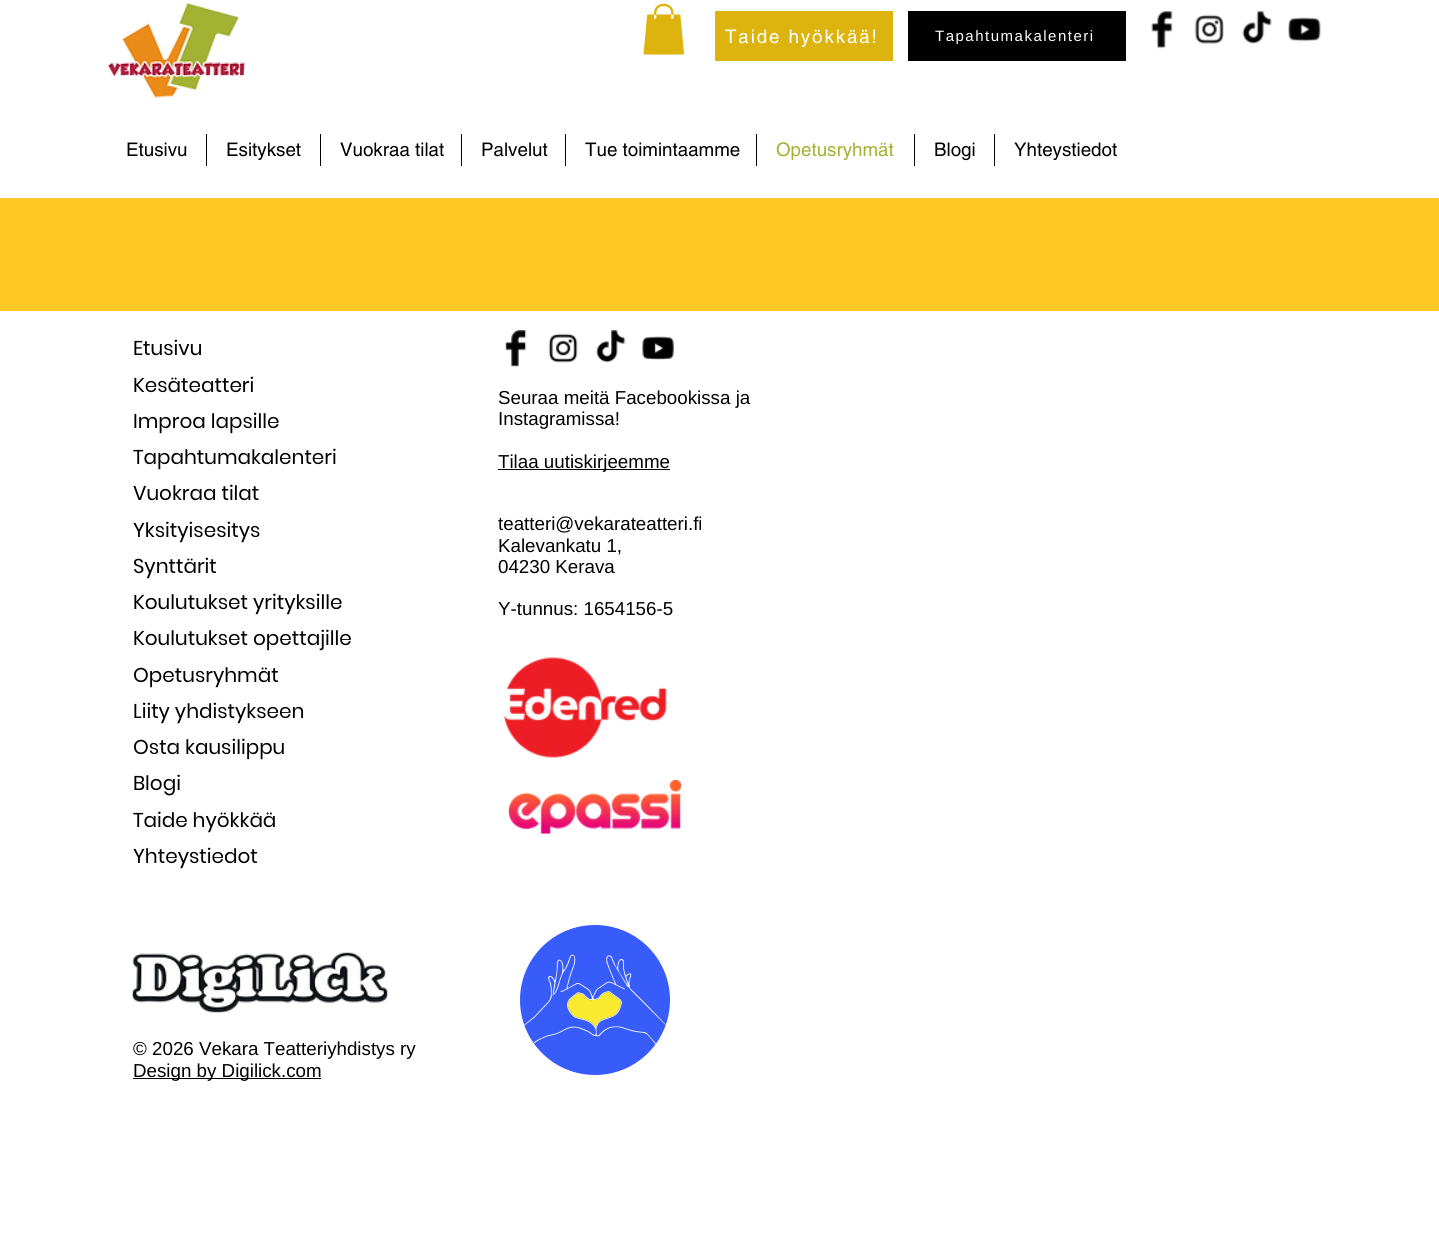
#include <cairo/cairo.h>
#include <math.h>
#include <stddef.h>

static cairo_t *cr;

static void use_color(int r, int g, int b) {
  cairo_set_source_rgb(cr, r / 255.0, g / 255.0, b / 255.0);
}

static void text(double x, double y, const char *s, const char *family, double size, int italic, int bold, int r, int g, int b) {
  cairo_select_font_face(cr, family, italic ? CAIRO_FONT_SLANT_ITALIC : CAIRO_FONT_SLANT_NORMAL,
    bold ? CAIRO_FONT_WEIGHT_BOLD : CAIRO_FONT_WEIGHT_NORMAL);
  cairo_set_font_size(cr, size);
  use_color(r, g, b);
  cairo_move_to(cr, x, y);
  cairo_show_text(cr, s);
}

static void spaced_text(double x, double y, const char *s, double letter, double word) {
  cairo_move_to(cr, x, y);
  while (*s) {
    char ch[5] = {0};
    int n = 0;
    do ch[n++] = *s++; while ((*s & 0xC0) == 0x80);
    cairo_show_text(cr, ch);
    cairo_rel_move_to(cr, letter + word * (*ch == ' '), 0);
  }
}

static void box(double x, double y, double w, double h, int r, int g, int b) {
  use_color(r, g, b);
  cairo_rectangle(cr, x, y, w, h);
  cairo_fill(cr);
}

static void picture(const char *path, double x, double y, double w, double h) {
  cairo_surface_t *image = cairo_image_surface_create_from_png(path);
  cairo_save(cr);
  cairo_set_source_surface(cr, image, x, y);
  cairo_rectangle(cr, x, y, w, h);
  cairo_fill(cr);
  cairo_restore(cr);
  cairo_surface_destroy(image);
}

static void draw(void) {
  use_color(255, 255, 255);
  cairo_paint(cr);
  picture("img_01.png", 107, 2, 138, 96);
  picture("img_02.png", 643, 3, 41, 52);
  box(715, 11, 178, 50, 221, 180, 13);
  box(908, 11, 218, 50, 0, 0, 0);
  picture("img_03.png", 1151, 11, 22, 38);
  picture("img_04.png", 1194, 14, 30, 31);
  picture("img_05.png", 1242, 11, 30, 33);
  picture("img_06.png", 1288, 17, 33, 25);
  box(206, 134, 1, 32, 0, 0, 0);
  box(320, 134, 1, 32, 0, 0, 0);
  box(461, 134, 1, 32, 0, 0, 0);
  box(565, 134, 1, 32, 0, 0, 0);
  box(756, 134, 1, 32, 0, 0, 0);
  box(914, 134, 1, 32, 0, 0, 0);
  box(994, 134, 1, 32, 0, 0, 0);
  box(0, 198, 1439, 113, 255, 200, 36);
  picture("img_07.png", 505, 330, 22, 37);
  picture("img_08.png", 548, 333, 30, 30);
  picture("img_09.png", 596, 330, 30, 33);
  picture("img_10.png", 642, 336, 32, 24);
  box(498, 469, 172, 1, 0, 0, 0);
  picture("img_11.png", 503, 657, 164, 101);
  picture("img_12.png", 508, 780, 174, 54);
  picture("img_13.png", 132, 952, 256, 61);
  picture("img_14.png", 520, 925, 150, 150);
  box(133, 1078, 188, 1, 0, 0, 0);
  cairo_select_font_face(cr, "helvetica", CAIRO_FONT_SLANT_NORMAL, CAIRO_FONT_WEIGHT_NORMAL);
  cairo_set_font_size(cr, 18.75);
  use_color(255, 255, 255);
  spaced_text(725, 43, "Taide hyökkää!", 1.9, 0);
  cairo_select_font_face(cr, "Liberation Sans", CAIRO_FONT_SLANT_NORMAL, CAIRO_FONT_WEIGHT_NORMAL);
  cairo_set_font_size(cr, 15);
  spaced_text(935, 41, "Tapahtumakalenteri", 1.5, 0);
  text(126, 156, "Etusivu", "helvetica", 18.75, 0, 0, 0, 0, 0);
  text(226, 156, "Esitykset", "helvetica", 18.75, 0, 0, 0, 0, 0);
  text(340, 156, "Vuokraa tilat", "helvetica", 18.75, 0, 0, 0, 0, 0);
  text(481, 156, "Palvelut", "helvetica", 18.75, 0, 0, 0, 0, 0);
  text(585, 156, "Tue toimintaamme", "helvetica", 18.75, 0, 0, 0, 0, 0);
  text(776, 156, "Opetusryhmät", "helvetica", 18.75, 0, 0, 162, 179, 52);
  text(934, 156, "Blogi", "helvetica", 18.75, 0, 0, 0, 0, 0);
  text(1014, 156, "Yhteystiedot", "helvetica", 18.75, 0, 0, 0, 0, 0);
  text(133, 355, "Etusivu", "Poppins", 20, 0, 0, 0, 0, 0);
  text(133, 392, "Kesäteatteri", "Poppins", 20, 0, 0, 0, 0, 0);
  text(133, 428, "Improa lapsille", "Poppins", 20, 0, 0, 0, 0, 0);
  text(133, 464, "Tapahtumakalenteri", "Poppins", 20, 0, 0, 0, 0, 0);
  text(133, 500, "Vuokraa tilat", "Poppins", 20, 0, 0, 0, 0, 0);
  text(133, 537, "Yksityisesitys", "Poppins", 20, 0, 0, 0, 0, 0);
  text(133, 573, "Synttärit", "Poppins", 20, 0, 0, 0, 0, 0);
  text(133, 609, "Koulutukset yrityksille", "Poppins", 20, 0, 0, 0, 0, 0);
  text(133, 645, "Koulutukset opettajille", "Poppins", 20, 0, 0, 0, 0, 0);
  text(133, 682, "Opetusryhmät", "Poppins", 20, 0, 0, 0, 0, 0);
  text(133, 718, "Liity yhdistykseen", "Poppins", 20, 0, 0, 0, 0, 0);
  text(133, 754, "Osta kausilippu", "Poppins", 20, 0, 0, 0, 0, 0);
  text(133, 790, "Blogi", "Poppins", 20, 0, 0, 0, 0, 0);
  text(133, 827, "Taide hyökkää", "Poppins", 20, 0, 0, 0, 0, 0);
  text(133, 863, "Yhteystiedot", "Poppins", 20, 0, 0, 0, 0, 0);
  text(498, 404, "Seuraa meitä Facebookissa ja", "Liberation Sans", 18.75, 0, 0, 0, 0, 0);
  text(498, 425, "Instagramissa!", "Liberation Sans", 18.75, 0, 0, 0, 0, 0);
  text(498, 468, "Tilaa uutiskirjeemme", "Liberation Sans", 18.75, 0, 0, 0, 0, 0);
  text(498, 530, "teatteri@vekarateatteri.fi", "Liberation Sans", 18.75, 0, 0, 0, 0, 0);
  text(498, 552, "Kalevankatu 1,", "Liberation Sans", 18.75, 0, 0, 0, 0, 0);
  text(498, 573, "04230 Kerava", "Liberation Sans", 18.75, 0, 0, 0, 0, 0);
  text(498, 615, "Y-tunnus: 1654156-5", "Liberation Sans", 18.75, 0, 0, 0, 0, 0);
  text(133, 1055, "© 2026 Vekara Teatteriyhdistys ry", "Liberation Sans", 18.75, 0, 0, 0, 0, 0);
  text(133, 1077, "Design by Digilick.com", "Liberation Sans", 18.75, 0, 0, 0, 0, 0);
}

int main(void) {
  cairo_surface_t *surface = cairo_image_surface_create(CAIRO_FORMAT_RGB24, 1439, 1246);
  cr = cairo_create(surface);
  cairo_font_options_t *options = cairo_font_options_create();
  cairo_font_options_set_hint_metrics(options, CAIRO_HINT_METRICS_OFF);
  cairo_font_options_set_hint_style(options, CAIRO_HINT_STYLE_NONE);
  cairo_set_font_options(cr, options);
  cairo_set_miter_limit(cr, 4);
  draw();
  cairo_surface_write_to_png(surface, "out.png");
  cairo_font_options_destroy(options);
  cairo_destroy(cr);
  cairo_surface_destroy(surface);
  return 0;
}
